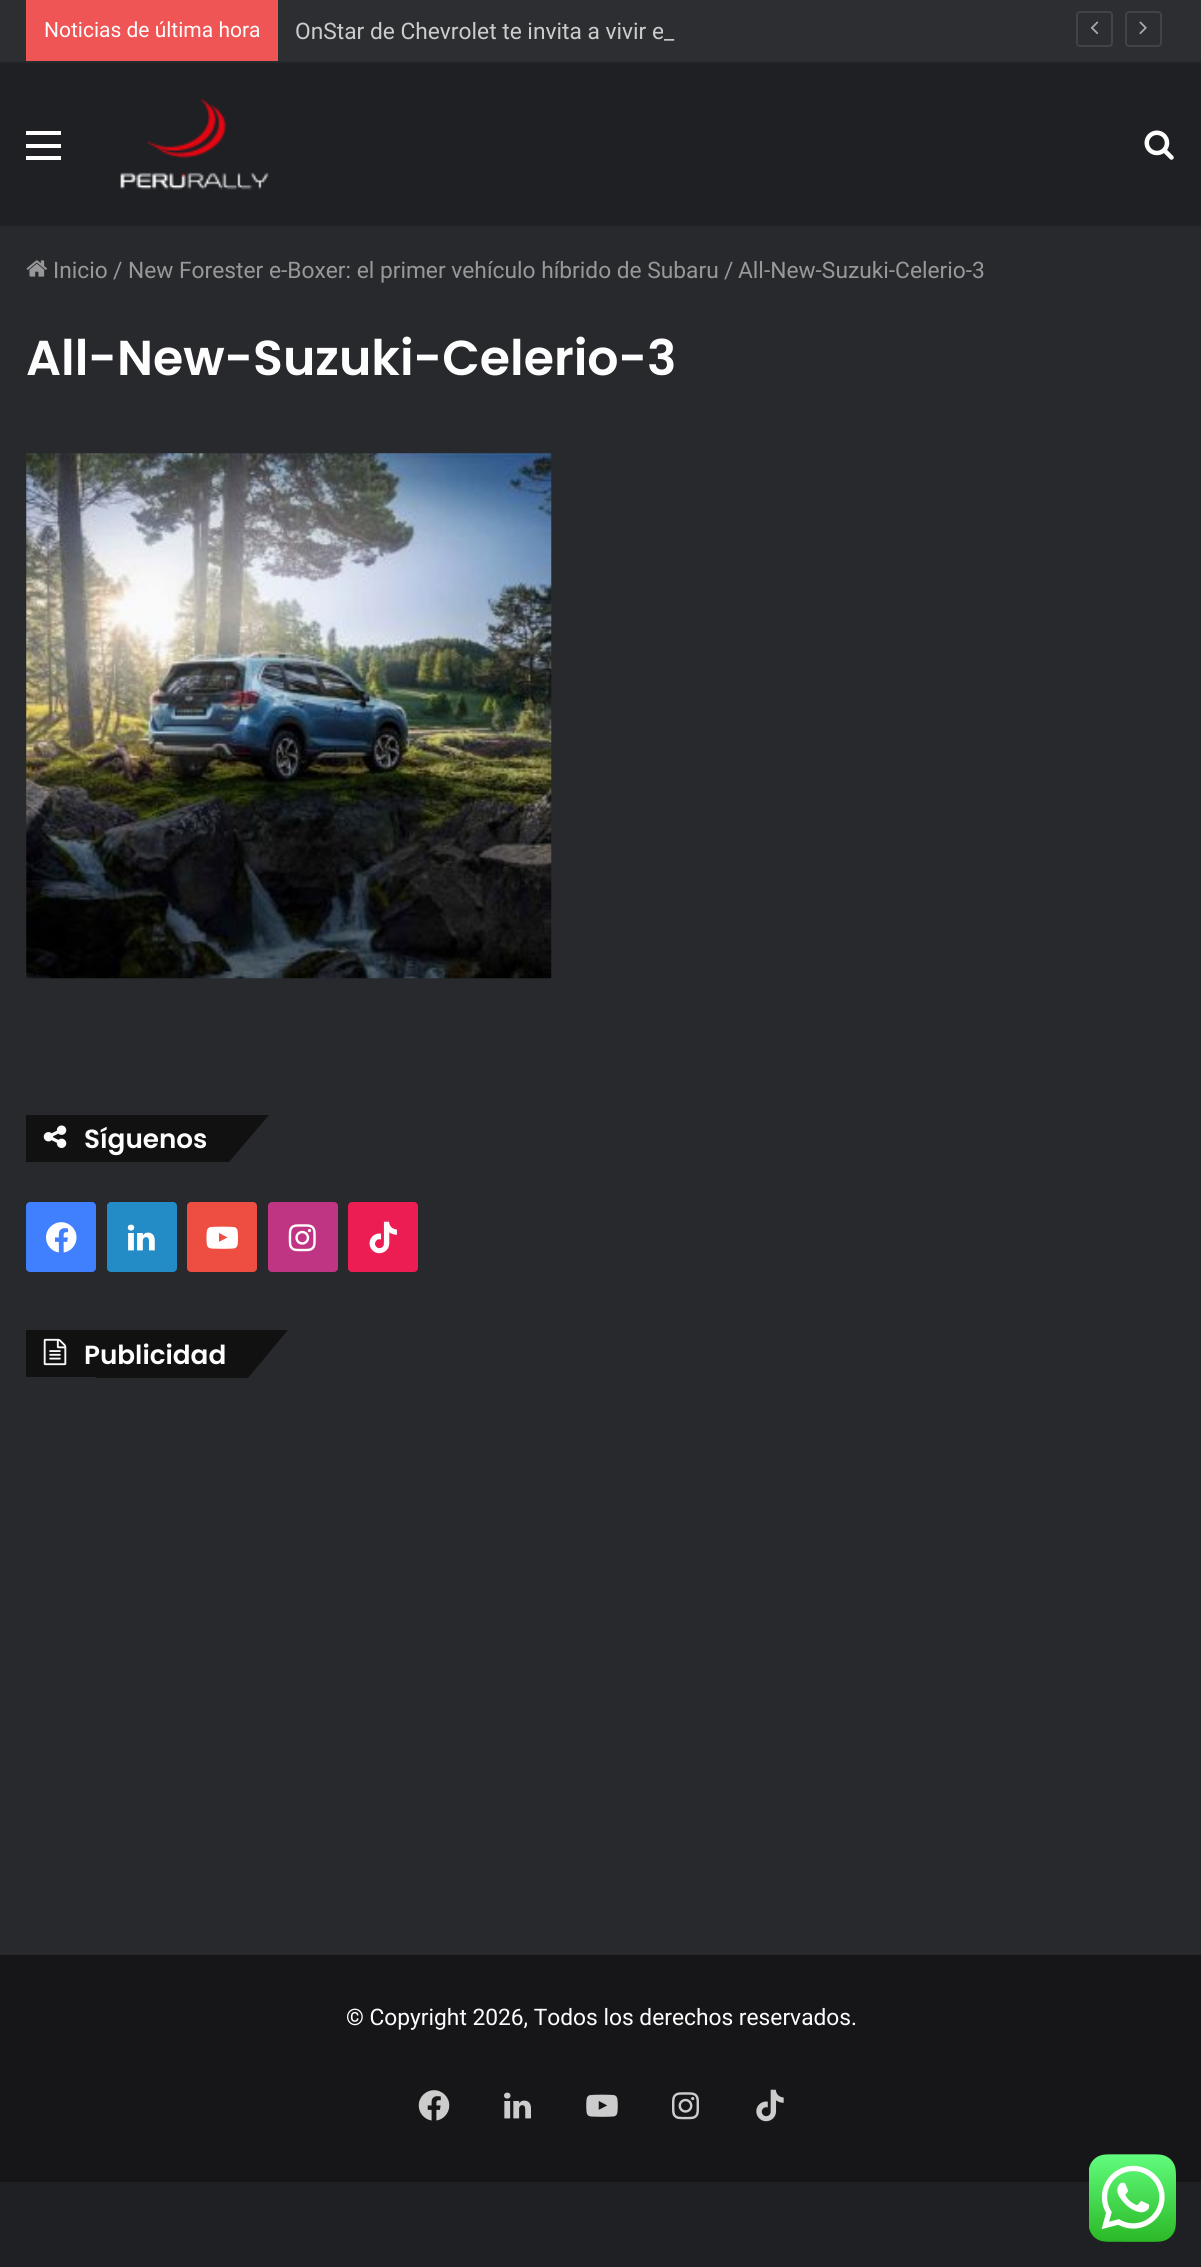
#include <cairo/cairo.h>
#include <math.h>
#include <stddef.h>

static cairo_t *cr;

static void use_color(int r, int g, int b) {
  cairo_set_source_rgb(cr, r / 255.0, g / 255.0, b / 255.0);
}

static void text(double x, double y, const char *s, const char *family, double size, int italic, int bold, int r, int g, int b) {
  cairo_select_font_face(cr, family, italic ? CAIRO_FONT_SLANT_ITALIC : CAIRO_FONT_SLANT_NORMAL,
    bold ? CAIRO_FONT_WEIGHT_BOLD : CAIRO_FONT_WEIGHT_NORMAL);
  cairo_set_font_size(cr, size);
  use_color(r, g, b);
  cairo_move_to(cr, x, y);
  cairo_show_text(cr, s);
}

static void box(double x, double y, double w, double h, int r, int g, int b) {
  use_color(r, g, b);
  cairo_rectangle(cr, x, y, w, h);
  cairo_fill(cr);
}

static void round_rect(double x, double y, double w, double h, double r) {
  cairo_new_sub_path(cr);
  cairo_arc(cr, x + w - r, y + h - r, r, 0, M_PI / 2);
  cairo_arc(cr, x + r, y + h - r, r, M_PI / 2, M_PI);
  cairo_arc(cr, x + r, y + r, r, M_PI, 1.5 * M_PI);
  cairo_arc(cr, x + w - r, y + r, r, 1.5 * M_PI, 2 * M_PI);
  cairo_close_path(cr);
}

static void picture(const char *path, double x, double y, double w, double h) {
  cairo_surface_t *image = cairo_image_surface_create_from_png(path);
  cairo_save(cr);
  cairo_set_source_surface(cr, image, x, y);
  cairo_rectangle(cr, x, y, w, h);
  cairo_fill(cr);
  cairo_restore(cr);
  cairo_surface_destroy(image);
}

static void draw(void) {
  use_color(31, 32, 36);
  cairo_paint(cr);
  box(0, 226, 1201, 1729, 39, 41, 45);
  box(0, 0, 1201, 61, 44, 46, 50);
  box(0, 61, 1201, 2, 40, 41, 45);
  box(26, 0, 252, 61, 240, 85, 85);
  round_rect(1077, 12, 35, 34, 3);
  use_color(65, 67, 71);
  cairo_stroke(cr);
  picture("img_01.png", 1090, 21, 9, 14);
  round_rect(1126, 12, 35, 34, 3);
  cairo_stroke(cr);
  picture("img_02.png", 1139, 21, 8, 14);
  box(26, 144, 35, 4, 255, 255, 255);
  box(26, 131, 35, 4, 255, 255, 255);
  box(26, 156, 35, 4, 255, 255, 255);
  picture("img_03.png", 120, 98, 149, 92);
  picture("img_04.png", 1144, 130, 30, 30);
  picture("img_05.png", 26, 260, 21, 17);
  picture("img_06.png", 26, 453, 526, 526);
  box(26, 1115, 104, 47, 17, 17, 18);
  cairo_new_path(cr);
  cairo_move_to(cr, 130, 1115);
  cairo_line_to(cr, 269, 1115);
  cairo_line_to(cr, 229, 1162);
  cairo_line_to(cr, 90, 1162);
  cairo_close_path(cr);
  cairo_fill(cr);
  picture("img_07.png", 43, 1125, 24, 23);
  use_color(64, 127, 253);
  round_rect(26, 1202, 70, 70, 4);
  cairo_fill(cr);
  picture("img_08.png", 46, 1222, 31, 31);
  use_color(35, 139, 198);
  round_rect(107, 1202, 70, 70, 4);
  cairo_fill(cr);
  picture("img_09.png", 127, 1224, 28, 27);
  use_color(237, 78, 65);
  round_rect(187, 1202, 70, 70, 4);
  cairo_fill(cr);
  picture("img_10.png", 206, 1226, 32, 23);
  use_color(191, 53, 131);
  round_rect(268, 1202, 70, 70, 4);
  cairo_fill(cr);
  picture("img_11.png", 288, 1224, 28, 28);
  use_color(236, 29, 82);
  round_rect(348, 1202, 70, 70, 4);
  cairo_fill(cr);
  picture("img_12.png", 369, 1221, 28, 33);
  box(26, 1330, 110, 47, 17, 17, 18);
  cairo_new_path(cr);
  cairo_move_to(cr, 136, 1330);
  cairo_line_to(cr, 288, 1330);
  cairo_line_to(cr, 248, 1378);
  cairo_line_to(cr, 96, 1378);
  cairo_close_path(cr);
  cairo_fill(cr);
  picture("img_13.png", 43, 1338, 24, 28);
  box(0, 1955, 1201, 227, 22, 22, 25);
  picture("img_14.png", 418, 2090, 32, 31);
  picture("img_15.png", 504, 2092, 27, 27);
  picture("img_16.png", 586, 2094, 32, 23);
  picture("img_17.png", 672, 2092, 27, 28);
  picture("img_18.png", 756, 2089, 28, 33);
  picture("img_19.png", 1089, 2154, 87, 88);
  text(44, 37, "Noticias de última hora", "Roboto", 21, 0, 0, 253, 253, 253);
  text(295, 39, "OnStar de Chevrolet te invita a vivir e_", "Roboto", 22.75, 0, 0, 204, 204, 204);
  box(663, 30, 1, 7, 44, 46, 50);
  text(53, 278, "Inicio", "Roboto", 22.75, 0, 0, 152, 152, 152);
  text(113, 278, "/", "Roboto", 22.75, 0, 0, 152, 152, 152);
  text(128, 278, "New Forester e-Boxer: el primer vehículo híbrido de Subaru", "Roboto", 22.75, 0, 0, 152, 152, 152);
  text(724, 278, "/", "Roboto", 22.75, 0, 0, 152, 152, 152);
  text(738, 278, "All-New-Suzuki-Celerio-3", "Roboto", 22.75, 0, 0, 152, 152, 152);
  text(26, 375, "All-New-Suzuki-Celerio-3", "Poppins SemiBold", 49, 0, 0, 253, 253, 253);
  text(84, 1148, "Síguenos", "Poppins SemiBold", 26.25, 0, 0, 253, 253, 253);
  text(84, 1364, "Publicidad", "Poppins SemiBold", 26.25, 0, 0, 253, 253, 253);
  text(346, 2025, "© Copyright 2026, Todos los derechos reservados.", "Roboto", 22.75, 0, 0, 253, 253, 253);
}

int main(void) {
  cairo_surface_t *surface = cairo_image_surface_create(CAIRO_FORMAT_RGB24, 1201, 2267);
  cr = cairo_create(surface);
  cairo_font_options_t *options = cairo_font_options_create();
  cairo_font_options_set_hint_metrics(options, CAIRO_HINT_METRICS_OFF);
  cairo_font_options_set_hint_style(options, CAIRO_HINT_STYLE_NONE);
  cairo_set_font_options(cr, options);
  cairo_set_miter_limit(cr, 4);
  draw();
  cairo_surface_write_to_png(surface, "out.png");
  cairo_font_options_destroy(options);
  cairo_destroy(cr);
  cairo_surface_destroy(surface);
  return 0;
}
